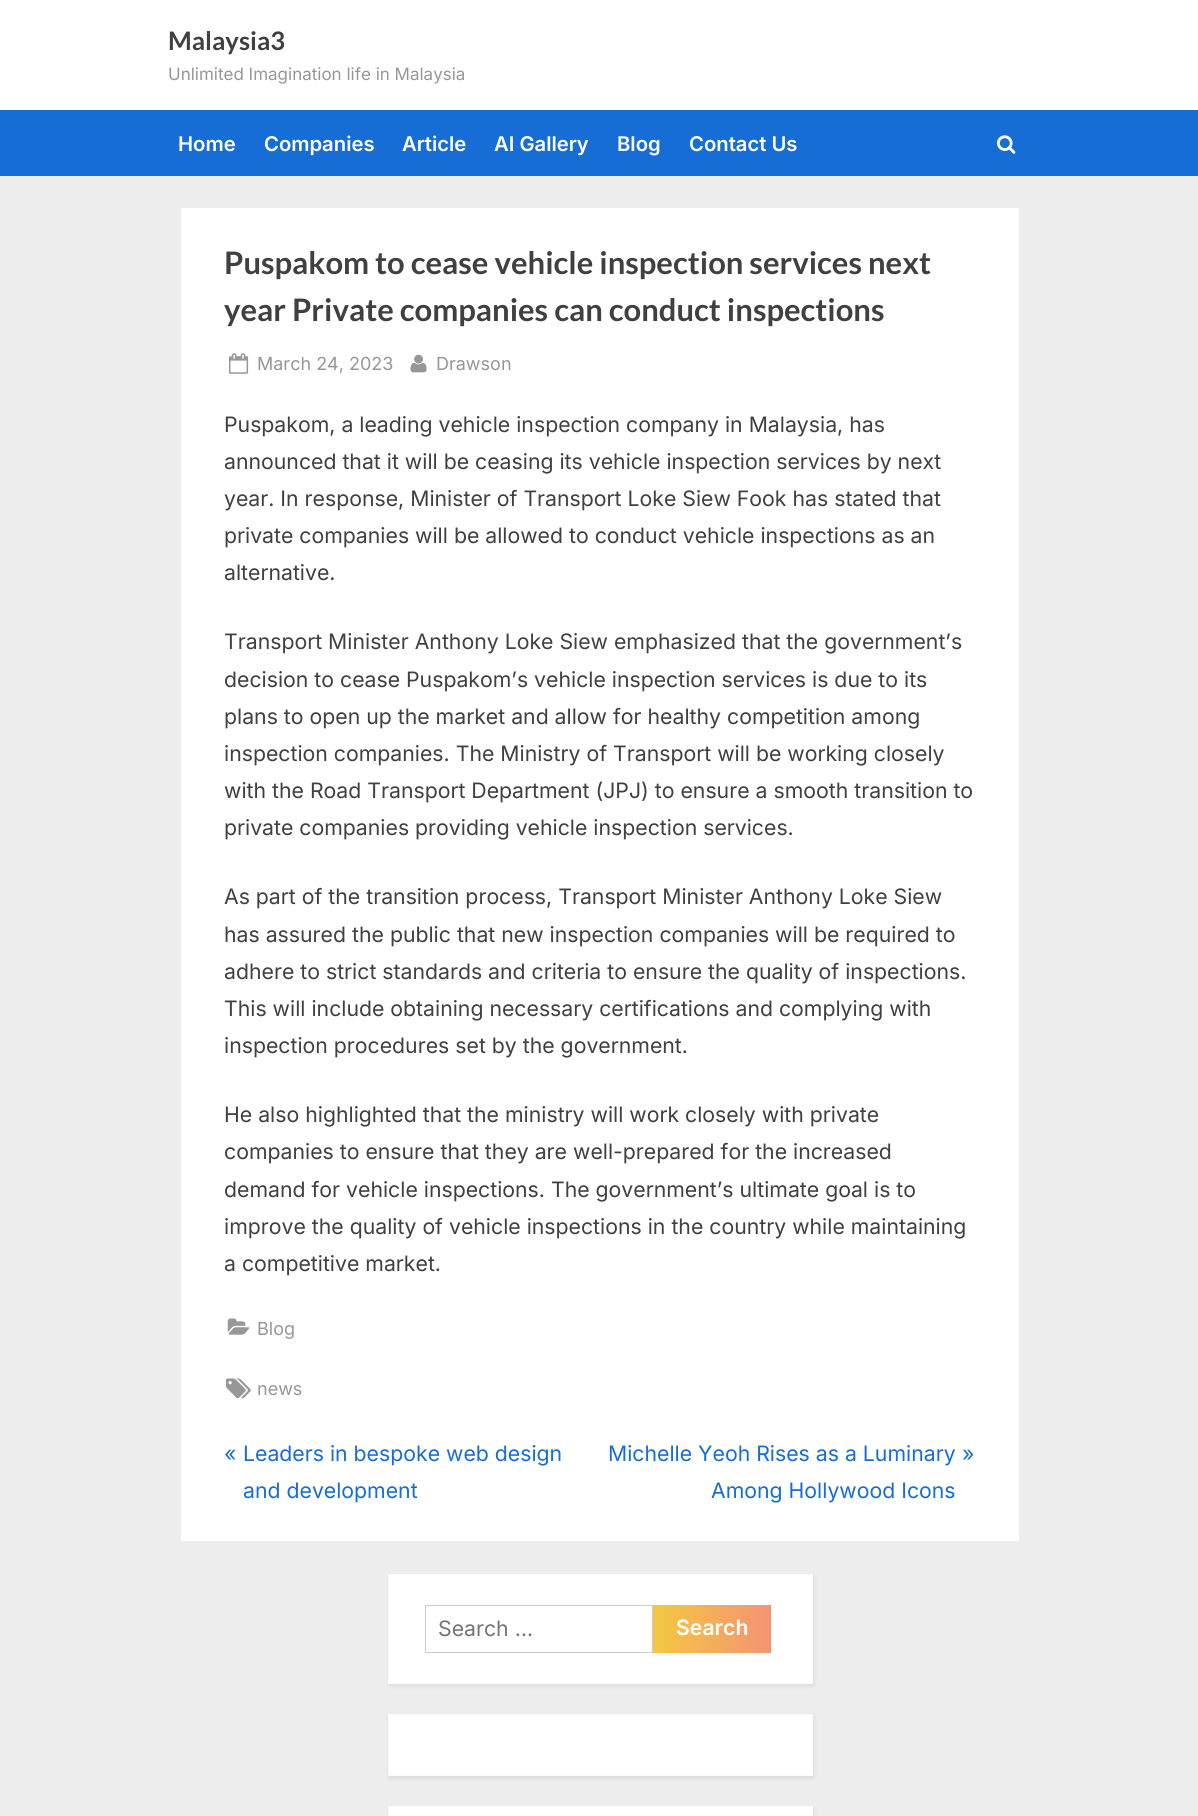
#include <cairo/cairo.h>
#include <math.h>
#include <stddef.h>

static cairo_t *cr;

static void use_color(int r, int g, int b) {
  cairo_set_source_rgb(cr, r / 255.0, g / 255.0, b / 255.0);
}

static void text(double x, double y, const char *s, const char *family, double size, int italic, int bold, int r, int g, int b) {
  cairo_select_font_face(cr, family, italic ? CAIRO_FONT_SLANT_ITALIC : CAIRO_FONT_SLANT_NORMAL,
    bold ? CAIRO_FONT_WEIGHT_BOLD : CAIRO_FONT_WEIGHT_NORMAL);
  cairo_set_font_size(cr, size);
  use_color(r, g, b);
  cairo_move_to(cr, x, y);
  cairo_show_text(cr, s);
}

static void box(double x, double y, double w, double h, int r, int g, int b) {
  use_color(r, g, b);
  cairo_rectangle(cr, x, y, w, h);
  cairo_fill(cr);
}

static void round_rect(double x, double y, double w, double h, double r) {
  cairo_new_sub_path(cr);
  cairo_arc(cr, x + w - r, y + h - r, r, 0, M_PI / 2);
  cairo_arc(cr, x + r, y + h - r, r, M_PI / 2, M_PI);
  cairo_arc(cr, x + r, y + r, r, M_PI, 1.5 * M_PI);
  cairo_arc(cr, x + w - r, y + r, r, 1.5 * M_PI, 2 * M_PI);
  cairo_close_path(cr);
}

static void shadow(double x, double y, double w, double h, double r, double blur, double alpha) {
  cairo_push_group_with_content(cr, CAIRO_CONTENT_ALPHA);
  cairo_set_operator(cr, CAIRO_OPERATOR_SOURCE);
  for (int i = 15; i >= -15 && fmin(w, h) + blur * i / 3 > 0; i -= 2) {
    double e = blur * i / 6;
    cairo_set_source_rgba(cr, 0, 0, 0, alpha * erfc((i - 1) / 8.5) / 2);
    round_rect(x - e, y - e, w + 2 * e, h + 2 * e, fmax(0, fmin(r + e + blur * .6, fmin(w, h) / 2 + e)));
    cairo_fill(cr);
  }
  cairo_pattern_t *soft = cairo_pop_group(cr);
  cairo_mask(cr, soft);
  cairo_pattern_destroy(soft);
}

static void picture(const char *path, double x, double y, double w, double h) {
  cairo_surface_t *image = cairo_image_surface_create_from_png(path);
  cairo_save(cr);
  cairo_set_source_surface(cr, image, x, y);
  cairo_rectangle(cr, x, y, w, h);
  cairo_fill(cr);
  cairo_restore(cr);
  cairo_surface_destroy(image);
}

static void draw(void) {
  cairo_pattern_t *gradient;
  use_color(237, 237, 237);
  cairo_paint(cr);
  box(0, 0, 1198, 110, 255, 255, 255);
  box(0, 110, 1198, 66, 22, 109, 214);
  picture("img_01.png", 997, 135, 19, 19);
  box(181, 208, 838, 1333, 255, 255, 255);
  picture("img_02.png", 229, 353, 20, 21);
  picture("img_03.png", 410, 354, 17, 19);
  picture("img_04.png", 227, 1318, 23, 17);
  picture("img_05.png", 225, 1378, 26, 21);
  use_color(0, 0, 0);
  shadow(389, 1576, 425, 110, 0, 2, 0.07);
  use_color(255, 255, 255);
  cairo_rectangle(cr, 388.5, 1574.5, 424, 109);
  cairo_fill_preserve(cr);
  use_color(250, 250, 250);
  cairo_set_line_width(cr, 1);
  cairo_stroke(cr);
  cairo_rectangle(cr, 425.5, 1605.5, 227, 47);
  use_color(204, 204, 204);
  cairo_stroke(cr);
  gradient = cairo_pattern_create_linear(428, 1629, 655, 1629);
  cairo_pattern_add_color_stop_rgba(gradient, 0, 0.953, 0.784, 0.255, 1);
  cairo_pattern_add_color_stop_rgba(gradient, 0.51, 0.965, 0.573, 0.459, 1);
  cairo_pattern_add_color_stop_rgba(gradient, 1, 0.953, 0.784, 0.255, 1);
  cairo_set_source(cr, gradient);
  cairo_pattern_destroy(gradient);
  cairo_rectangle(cr, 653, 1605, 2, 48);
  cairo_fill(cr);
  gradient = cairo_pattern_create_linear(655, 1629, 883, 1629);
  cairo_pattern_add_color_stop_rgba(gradient, 0, 0.953, 0.784, 0.255, 1);
  cairo_pattern_add_color_stop_rgba(gradient, 0.51, 0.965, 0.573, 0.459, 1);
  cairo_pattern_add_color_stop_rgba(gradient, 1, 0.953, 0.784, 0.255, 1);
  cairo_set_source(cr, gradient);
  cairo_pattern_destroy(gradient);
  cairo_rectangle(cr, 655, 1605, 116, 48);
  cairo_fill(cr);
  use_color(0, 0, 0);
  shadow(389, 1716, 425, 63, 0, 2, 0.07);
  use_color(255, 255, 255);
  cairo_rectangle(cr, 388.5, 1714.5, 424, 61);
  cairo_fill_preserve(cr);
  use_color(250, 250, 250);
  cairo_stroke(cr);
  use_color(0, 0, 0);
  shadow(389, 1809, 425, 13, 0, 2, 0.07);
  use_color(255, 255, 255);
  cairo_rectangle(cr, 388.5, 1806.5, 424, 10);
  cairo_fill_preserve(cr);
  use_color(250, 250, 250);
  cairo_stroke(cr);
  text(168, 50, "Malaysia3", "Lato", 25.5, 0, 1, 64, 64, 64);
  text(168, 80, "Unlimited Imagination life in Malaysia", "Inter", 17, 0, 0, 151, 151, 151);
  text(178, 151, "Home", "Inter SemiBold", 20.25, 0, 0, 255, 255, 255);
  text(264, 151, "Companies", "Inter SemiBold", 20.25, 0, 0, 255, 255, 255);
  text(402, 151, "Article", "Inter SemiBold", 20.25, 0, 0, 255, 255, 255);
  text(494, 151, "AI Gallery", "Inter SemiBold", 20.25, 0, 0, 255, 255, 255);
  text(617, 151, "Blog", "Inter SemiBold", 20.25, 0, 0, 255, 255, 255);
  text(689, 151, "Contact Us", "Inter SemiBold", 20.25, 0, 0, 255, 255, 255);
  text(224, 274, "Puspakom to cease vehicle inspection services next", "Lato", 31, 0, 1, 64, 64, 64);
  text(224, 321, "year Private companies can conduct inspections", "Lato", 31, 0, 1, 64, 64, 64);
  text(257, 370, "March 24, 2023", "Inter", 18, 0, 0, 151, 151, 151);
  text(436, 370, "Drawson", "Inter", 18, 0, 0, 151, 151, 151);
  text(224, 432, "Puspakom, a leading vehicle inspection company in Malaysia, has", "Inter", 21.25, 0, 0, 64, 64, 64);
  text(224, 469, "announced that it will be ceasing its vehicle inspection services by next", "Inter", 21.25, 0, 0, 64, 64, 64);
  text(224, 506, "year. In response, Minister of Transport Loke Siew Fook has stated that", "Inter", 21.25, 0, 0, 64, 64, 64);
  text(224, 543, "private companies will be allowed to conduct vehicle inspections as an", "Inter", 21.25, 0, 0, 64, 64, 64);
  text(224, 580, "alternative.", "Inter", 21.25, 0, 0, 64, 64, 64);
  text(224, 649, "Transport Minister Anthony Loke Siew emphasized that the government’s", "Inter", 21.25, 0, 0, 64, 64, 64);
  text(224, 687, "decision to cease Puspakom’s vehicle inspection services is due to its", "Inter", 21.25, 0, 0, 64, 64, 64);
  text(224, 724, "plans to open up the market and allow for healthy competition among", "Inter", 21.25, 0, 0, 64, 64, 64);
  text(224, 761, "inspection companies. The Ministry of Transport will be working closely", "Inter", 21.25, 0, 0, 64, 64, 64);
  text(224, 798, "with the Road Transport Department (JPJ) to ensure a smooth transition to", "Inter", 21.25, 0, 0, 64, 64, 64);
  text(224, 835, "private companies providing vehicle inspection services.", "Inter", 21.25, 0, 0, 64, 64, 64);
  text(224, 904, "As part of the transition process, Transport Minister Anthony Loke Siew", "Inter", 21.25, 0, 0, 64, 64, 64);
  text(224, 942, "has assured the public that new inspection companies will be required to", "Inter", 21.25, 0, 0, 64, 64, 64);
  text(224, 979, "adhere to strict standards and criteria to ensure the quality of inspections.", "Inter", 21.25, 0, 0, 64, 64, 64);
  text(224, 1016, "This will include obtaining necessary certifications and complying with", "Inter", 21.25, 0, 0, 64, 64, 64);
  text(224, 1053, "inspection procedures set by the government.", "Inter", 21.25, 0, 0, 64, 64, 64);
  text(224, 1122, "He also highlighted that the ministry will work closely with private", "Inter", 21.25, 0, 0, 64, 64, 64);
  text(224, 1159, "companies to ensure that they are well-prepared for the increased", "Inter", 21.25, 0, 0, 64, 64, 64);
  text(224, 1197, "demand for vehicle inspections. The government’s ultimate goal is to", "Inter", 21.25, 0, 0, 64, 64, 64);
  text(224, 1234, "improve the quality of vehicle inspections in the country while maintaining", "Inter", 21.25, 0, 0, 64, 64, 64);
  text(224, 1271, "a competitive market.", "Inter", 21.25, 0, 0, 64, 64, 64);
  text(257, 1335, "Blog", "Inter", 18, 0, 0, 151, 151, 151);
  text(257, 1395, "news", "Inter", 18, 0, 0, 151, 151, 151);
  text(224, 1461, "«", "Inter", 21.25, 0, 0, 22, 109, 214);
  text(243, 1461, "Leaders in bespoke web design", "Inter", 21.25, 0, 0, 22, 109, 214);
  text(243, 1498, "and development", "Inter", 21.25, 0, 0, 22, 109, 214);
  text(608, 1461, "Michelle Yeoh Rises as a Luminary", "Inter", 21.25, 0, 0, 22, 109, 214);
  text(711, 1498, "Among Hollywood Icons", "Inter", 21.25, 0, 0, 22, 109, 214);
  text(962, 1461, "»", "Inter", 21.25, 0, 0, 22, 109, 214);
  text(438, 1636, "Search …", "Inter", 21.25, 0, 0, 117, 117, 117);
  text(676, 1635, "Search", "Inter SemiBold", 21.25, 0, 0, 255, 255, 255);
}

int main(void) {
  cairo_surface_t *surface = cairo_image_surface_create(CAIRO_FORMAT_RGB24, 1198, 1816);
  cr = cairo_create(surface);
  cairo_font_options_t *options = cairo_font_options_create();
  cairo_font_options_set_hint_metrics(options, CAIRO_HINT_METRICS_OFF);
  cairo_font_options_set_hint_style(options, CAIRO_HINT_STYLE_NONE);
  cairo_set_font_options(cr, options);
  cairo_set_miter_limit(cr, 4);
  draw();
  cairo_surface_write_to_png(surface, "out.png");
  cairo_font_options_destroy(options);
  cairo_destroy(cr);
  cairo_surface_destroy(surface);
  return 0;
}
